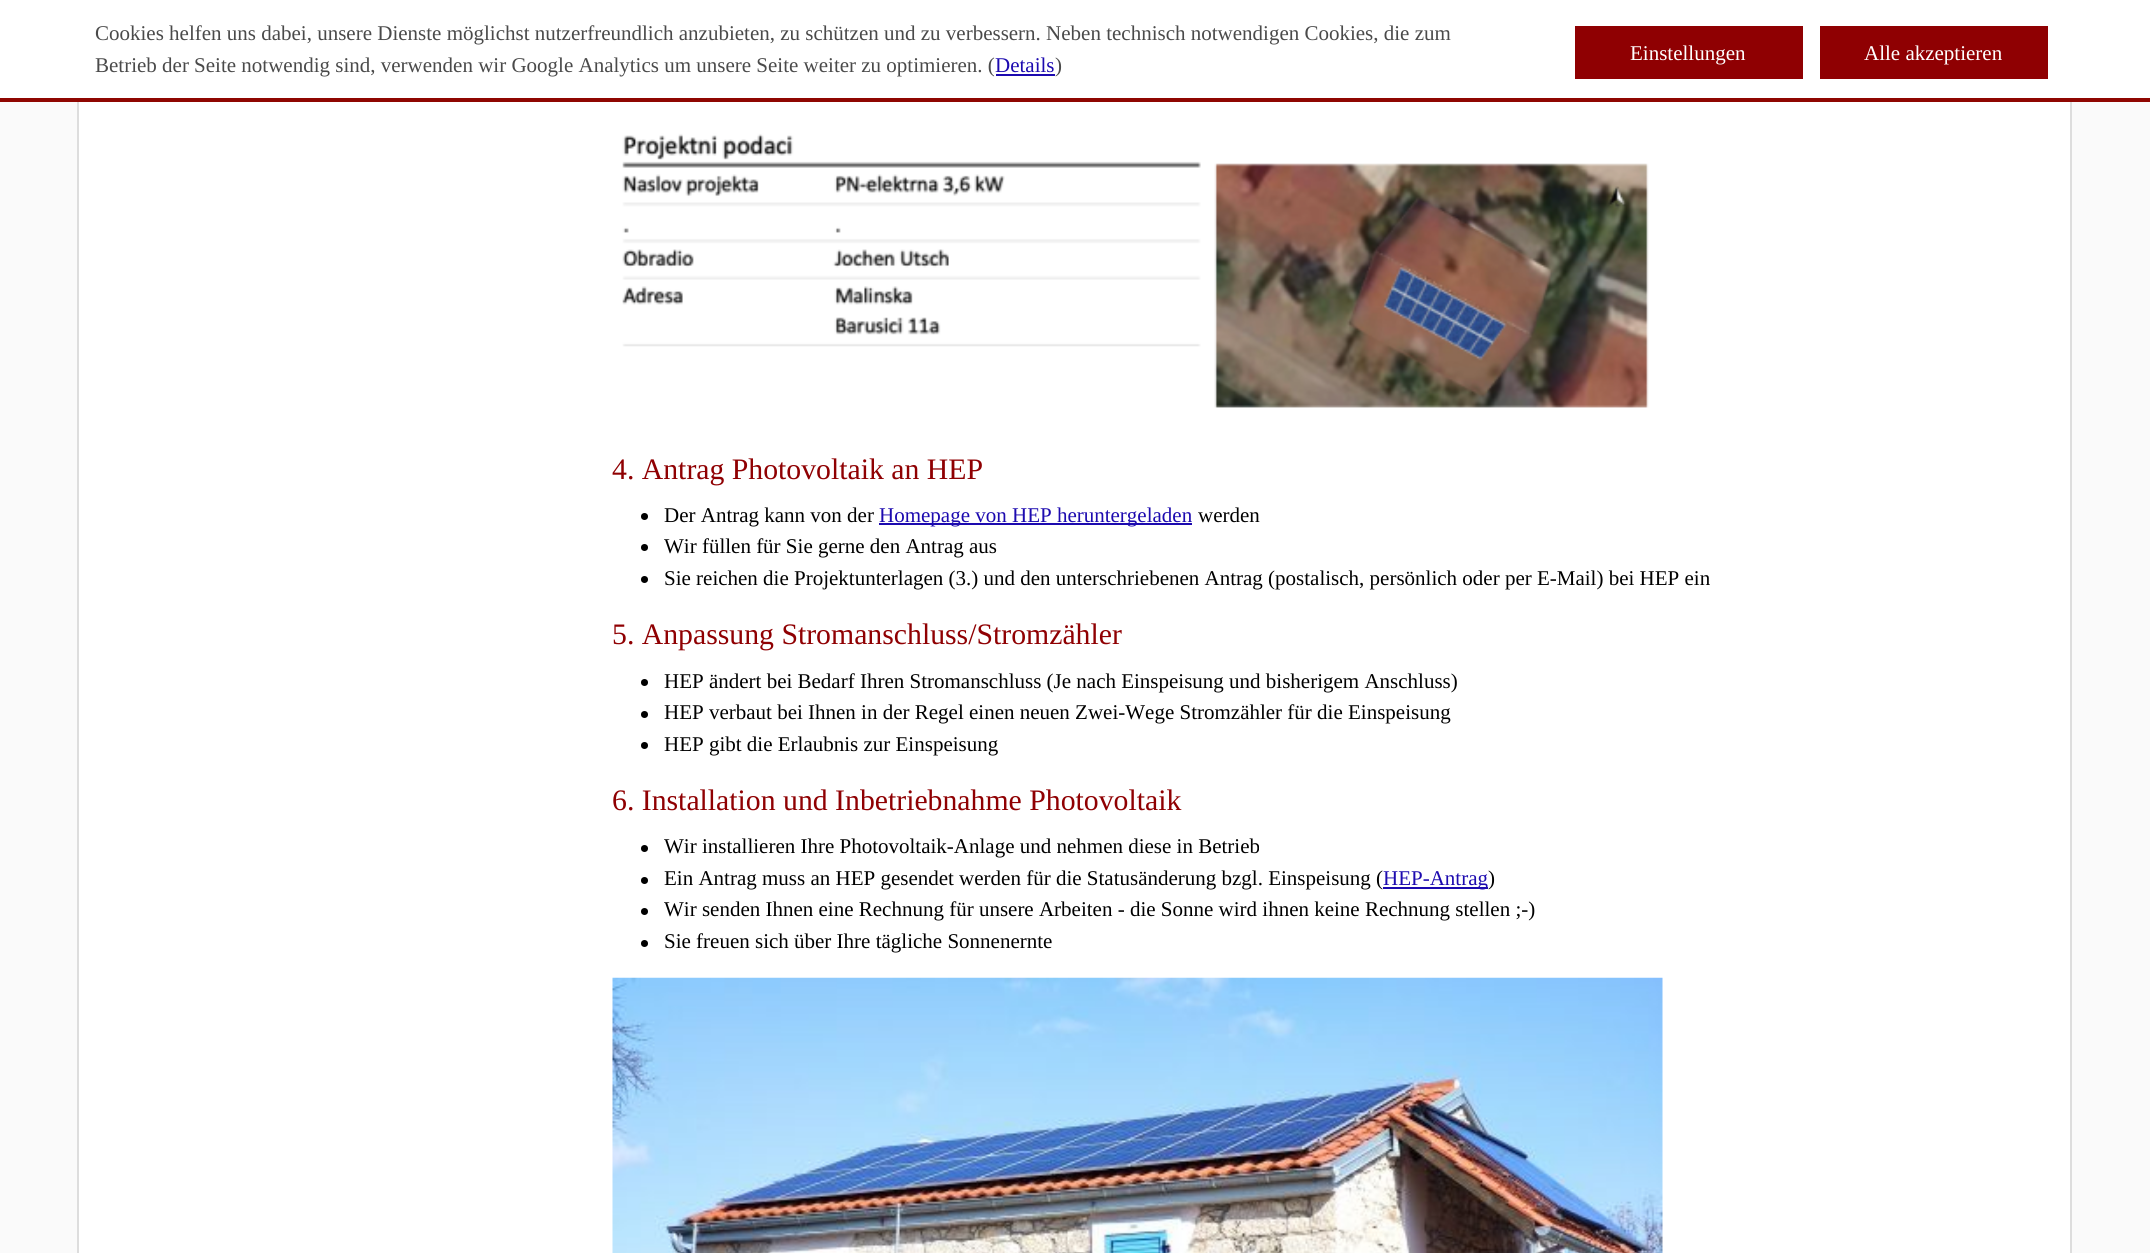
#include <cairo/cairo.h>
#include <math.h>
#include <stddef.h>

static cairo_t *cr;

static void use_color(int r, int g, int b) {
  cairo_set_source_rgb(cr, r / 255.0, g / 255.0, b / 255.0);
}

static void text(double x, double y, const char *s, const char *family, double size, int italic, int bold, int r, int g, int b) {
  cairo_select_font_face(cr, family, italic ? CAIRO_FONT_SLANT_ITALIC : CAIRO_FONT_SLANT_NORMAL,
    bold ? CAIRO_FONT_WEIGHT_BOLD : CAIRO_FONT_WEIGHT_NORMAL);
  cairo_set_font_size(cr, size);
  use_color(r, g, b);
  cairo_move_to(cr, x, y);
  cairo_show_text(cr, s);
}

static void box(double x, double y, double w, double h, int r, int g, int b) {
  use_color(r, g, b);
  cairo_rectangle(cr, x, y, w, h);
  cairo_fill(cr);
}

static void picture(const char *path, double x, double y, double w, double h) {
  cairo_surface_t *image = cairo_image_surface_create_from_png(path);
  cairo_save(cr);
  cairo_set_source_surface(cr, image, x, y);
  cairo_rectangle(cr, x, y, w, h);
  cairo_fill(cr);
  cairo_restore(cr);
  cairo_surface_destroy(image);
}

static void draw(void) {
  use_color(250, 250, 250);
  cairo_paint(cr);
  box(0, 0, 2150, 98, 255, 255, 255);
  box(0, 98, 2150, 4, 143, 6, 1);
  box(996, 74, 59, 2, 28, 10, 175);
  box(1575, 26, 228, 53, 143, 0, 2);
  box(1820, 26, 228, 53, 143, 0, 2);
  box(79, 102, 1991, 1151, 255, 255, 255);
  box(2070, 102, 2, 1151, 221, 221, 221);
  box(77, 102, 2, 1151, 221, 221, 221);
  picture("img_01.png", 622, 102, 1031, 306);
  use_color(0, 0, 0);
  cairo_arc(cr, 644.5, 516.5, 3.5, 0, 2 * M_PI);
  cairo_fill(cr);
  box(879, 523, 313, 2, 28, 10, 175);
  use_color(0, 0, 0);
  cairo_arc(cr, 644.5, 547.5, 3.5, 0, 2 * M_PI);
  cairo_fill(cr);
  cairo_arc(cr, 644.5, 579.5, 3.5, 0, 2 * M_PI);
  cairo_fill(cr);
  cairo_arc(cr, 644.5, 682.5, 3.5, 0, 2 * M_PI);
  cairo_fill(cr);
  cairo_arc(cr, 644.5, 714.5, 3.5, 0, 2 * M_PI);
  cairo_fill(cr);
  cairo_arc(cr, 644.5, 745.5, 3.5, 0, 2 * M_PI);
  cairo_fill(cr);
  cairo_arc(cr, 644.5, 848.5, 3.5, 0, 2 * M_PI);
  cairo_fill(cr);
  cairo_arc(cr, 644.5, 880.5, 3.5, 0, 2 * M_PI);
  cairo_fill(cr);
  box(1383, 887, 105, 2, 28, 10, 175);
  use_color(0, 0, 0);
  cairo_arc(cr, 644.5, 911.5, 3.5, 0, 2 * M_PI);
  cairo_fill(cr);
  cairo_arc(cr, 644.5, 943.5, 3.5, 0, 2 * M_PI);
  cairo_fill(cr);
  picture("img_02.png", 612, 977, 1051, 276);
  text(95, 40, "Cookies helfen uns dabei, unsere Dienste möglichst nutzerfreundlich anzubieten, zu schützen und zu verbessern. Neben technisch notwendigen Cookies, die zum", "Liberation Serif", 21, 0, 0, 74, 74, 74);
  text(95, 72, "Betrieb der Seite notwendig sind, verwenden wir Google Analytics um unsere Seite weiter zu optimieren. (", "Liberation Serif", 21, 0, 0, 74, 74, 74);
  text(995, 72, "Details", "Liberation Serif", 21, 0, 0, 28, 10, 175);
  text(1055, 72, ")", "Liberation Serif", 21, 0, 0, 74, 74, 74);
  text(1630, 60, "Einstellungen", "Liberation Serif", 21, 0, 0, 255, 255, 255);
  text(1864, 60, "Alle akzeptieren", "Liberation Serif", 21, 0, 0, 255, 255, 255);
  text(612, 479, "4. Antrag Photovoltaik an HEP", "Liberation Serif", 29.75, 0, 0, 143, 0, 2);
  text(664, 522, "Der Antrag kann von der", "Liberation Serif", 21, 0, 0, 0, 0, 0);
  text(879, 522, "Homepage von HEP heruntergeladen", "Liberation Serif", 21, 0, 0, 28, 10, 175);
  text(1198, 522, "werden", "Liberation Serif", 21, 0, 0, 0, 0, 0);
  text(664, 553, "Wir füllen für Sie gerne den Antrag aus", "Liberation Serif", 21, 0, 0, 0, 0, 0);
  text(664, 585, "Sie reichen die Projektunterlagen (3.) und den unterschriebenen Antrag (postalisch, persönlich oder per E-Mail) bei HEP ein", "Liberation Serif", 21, 0, 0, 0, 0, 0);
  text(612, 644, "5. Anpassung Stromanschluss/Stromzähler", "Liberation Serif", 29.75, 0, 0, 143, 0, 2);
  text(664, 688, "HEP ändert bei Bedarf Ihren Stromanschluss (Je nach Einspeisung und bisherigem Anschluss)", "Liberation Serif", 21, 0, 0, 0, 0, 0);
  text(664, 719, "HEP verbaut bei Ihnen in der Regel einen neuen Zwei-Wege Stromzähler für die Einspeisung", "Liberation Serif", 21, 0, 0, 0, 0, 0);
  text(664, 751, "HEP gibt die Erlaubnis zur Einspeisung", "Liberation Serif", 21, 0, 0, 0, 0, 0);
  text(612, 810, "6. Installation und Inbetriebnahme Photovoltaik", "Liberation Serif", 29.75, 0, 0, 143, 0, 2);
  text(664, 853, "Wir installieren Ihre Photovoltaik-Anlage und nehmen diese in Betrieb", "Liberation Serif", 21, 0, 0, 0, 0, 0);
  text(664, 885, "Ein Antrag muss an HEP gesendet werden für die Statusänderung bzgl. Einspeisung (", "Liberation Serif", 21, 0, 0, 0, 0, 0);
  text(1383, 885, "HEP-Antrag", "Liberation Serif", 21, 0, 0, 28, 10, 175);
  text(1488, 885, ")", "Liberation Serif", 21, 0, 0, 0, 0, 0);
  text(664, 916, "Wir senden Ihnen eine Rechnung für unsere Arbeiten - die Sonne wird ihnen keine Rechnung stellen ;-)", "Liberation Serif", 21, 0, 0, 0, 0, 0);
  text(664, 948, "Sie freuen sich über Ihre tägliche Sonnenernte", "Liberation Serif", 21, 0, 0, 0, 0, 0);
}

int main(void) {
  cairo_surface_t *surface = cairo_image_surface_create(CAIRO_FORMAT_RGB24, 2150, 1253);
  cr = cairo_create(surface);
  cairo_font_options_t *options = cairo_font_options_create();
  cairo_font_options_set_hint_metrics(options, CAIRO_HINT_METRICS_OFF);
  cairo_font_options_set_hint_style(options, CAIRO_HINT_STYLE_NONE);
  cairo_set_font_options(cr, options);
  cairo_set_miter_limit(cr, 4);
  draw();
  cairo_surface_write_to_png(surface, "out.png");
  cairo_font_options_destroy(options);
  cairo_destroy(cr);
  cairo_surface_destroy(surface);
  return 0;
}
